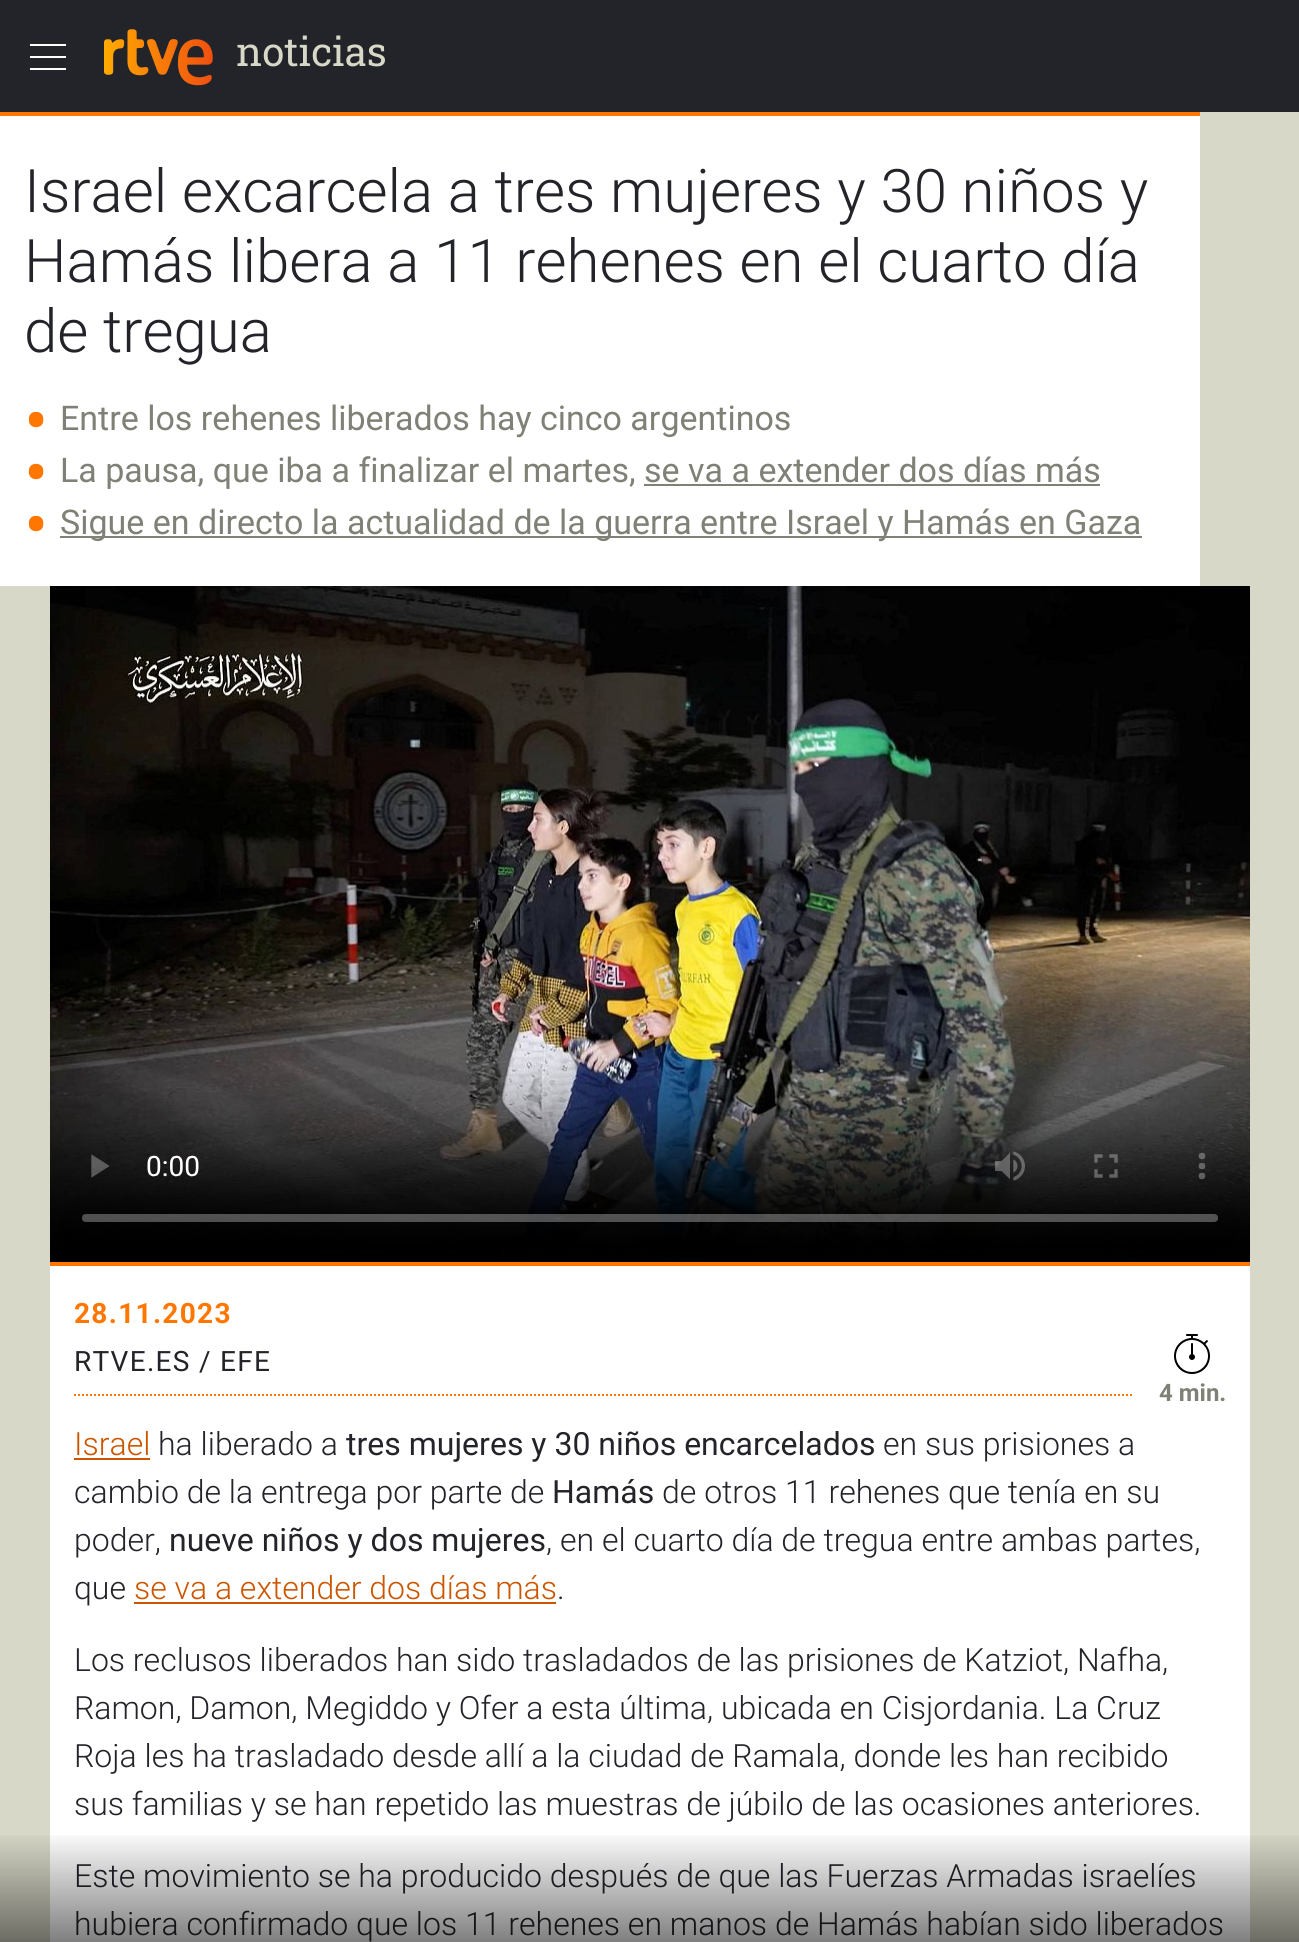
#include <cairo/cairo.h>
#include <math.h>
#include <stddef.h>

static cairo_t *cr;

static void use_color(int r, int g, int b) {
  cairo_set_source_rgb(cr, r / 255.0, g / 255.0, b / 255.0);
}

static void text(double x, double y, const char *s, const char *family, double size, int italic, int bold, int r, int g, int b) {
  cairo_select_font_face(cr, family, italic ? CAIRO_FONT_SLANT_ITALIC : CAIRO_FONT_SLANT_NORMAL,
    bold ? CAIRO_FONT_WEIGHT_BOLD : CAIRO_FONT_WEIGHT_NORMAL);
  cairo_set_font_size(cr, size);
  use_color(r, g, b);
  cairo_move_to(cr, x, y);
  cairo_show_text(cr, s);
}

static void spaced_text(double x, double y, const char *s, double letter, double word) {
  cairo_move_to(cr, x, y);
  while (*s) {
    char ch[5] = {0};
    int n = 0;
    do ch[n++] = *s++; while ((*s & 0xC0) == 0x80);
    cairo_show_text(cr, ch);
    cairo_rel_move_to(cr, letter + word * (*ch == ' '), 0);
  }
}

static void box(double x, double y, double w, double h, int r, int g, int b) {
  use_color(r, g, b);
  cairo_rectangle(cr, x, y, w, h);
  cairo_fill(cr);
}

static void picture(const char *path, double x, double y, double w, double h) {
  cairo_surface_t *image = cairo_image_surface_create_from_png(path);
  cairo_save(cr);
  cairo_set_source_surface(cr, image, x, y);
  cairo_rectangle(cr, x, y, w, h);
  cairo_fill(cr);
  cairo_restore(cr);
  cairo_surface_destroy(image);
}

static void draw(void) {
  cairo_pattern_t *gradient;
  use_color(216, 216, 200);
  cairo_paint(cr);
  box(0, 0, 1299, 112, 35, 36, 42);
  use_color(255, 255, 255);
  cairo_new_path(cr);
  cairo_move_to(cr, 30, 68);
  cairo_line_to(cr, 66, 68);
  cairo_line_to(cr, 66, 70);
  cairo_line_to(cr, 30, 70);
  cairo_close_path(cr);
  cairo_move_to(cr, 30, 58);
  cairo_line_to(cr, 66, 58);
  cairo_line_to(cr, 66, 56);
  cairo_line_to(cr, 30, 56);
  cairo_close_path(cr);
  cairo_move_to(cr, 30, 44);
  cairo_line_to(cr, 30, 46);
  cairo_line_to(cr, 66, 46);
  cairo_line_to(cr, 66, 44);
  cairo_close_path(cr);
  cairo_fill(cr);
  picture("img_01.png", 104, 29, 109, 57);
  box(0, 116, 1200, 470, 255, 255, 255);
  box(0, 112, 1200, 4, 255, 119, 0);
  box(644, 484, 456, 2, 128, 128, 119);
  box(60, 536, 1082, 2, 128, 128, 119);
  box(50, 1262, 1200, 4, 255, 119, 0);
  picture("img_02.png", 50, 586, 1200, 676);
  box(50, 1266, 1200, 676, 255, 255, 255);
  cairo_new_path(cr);
  cairo_move_to(cr, 74, 1395);
  cairo_line_to(cr, 1138, 1395);
  use_color(255, 119, 0);
  cairo_set_dash(cr, (double[]){2, 2}, 2, 0);
  cairo_stroke(cr);
  box(1134, 1394, 2, 2, 255, 255, 255);
  picture("img_03.png", 1174, 1334, 36, 40);
  box(74, 1458, 76, 2, 204, 85, 0);
  box(134, 1602, 422, 2, 204, 85, 0);
  text(236, 66, "noticias", "Roboto Slab", 40, 0, 0, 216, 216, 200);
  text(24, 212, "Israel excarcela a tres mujeres y 30 niños y", "Roboto Light", 60, 0, 0, 35, 36, 42);
  text(24, 282, "Hamás libera a 11 rehenes en el cuarto día", "Roboto Light", 60, 0, 0, 35, 36, 42);
  text(24, 352, "de tregua", "Roboto Light", 60, 0, 0, 35, 36, 42);
  text(24, 446, "•", "Roboto", 72, 0, 0, 255, 119, 0);
  text(60, 430, "Entre los rehenes liberados hay cinco argentinos", "Roboto", 34, 0, 0, 128, 128, 119);
  text(24, 498, "•", "Roboto", 72, 0, 0, 255, 119, 0);
  text(60, 482, "La pausa, que iba a finalizar el martes, se va a extender dos días más", "Roboto", 34, 0, 0, 128, 128, 119);
  text(24, 550, "•", "Roboto", 72, 0, 0, 255, 119, 0);
  text(60, 534, "Sigue en directo la actualidad de la guerra entre Israel y Hamás en Gaza", "Roboto", 34, 0, 0, 128, 128, 119);
  cairo_select_font_face(cr, "Roboto", CAIRO_FONT_SLANT_NORMAL, CAIRO_FONT_WEIGHT_BOLD);
  cairo_set_font_size(cr, 28);
  use_color(255, 119, 0);
  spaced_text(74, 1323, "28.11.2023", 1.3, 0);
  cairo_select_font_face(cr, "Roboto", CAIRO_FONT_SLANT_NORMAL, CAIRO_FONT_WEIGHT_NORMAL);
  use_color(35, 36, 42);
  spaced_text(74, 1371, "RTVE.ES / EFE", 1.3, 0);
  text(1159, 1401, "4 min.", "Roboto", 24, 0, 1, 128, 128, 119);
  text(74, 1455, "Israel", "Roboto Light", 32, 0, 0, 204, 85, 0);
  text(158, 1455, "ha liberado a", "Roboto Light", 32, 0, 0, 35, 36, 42);
  text(346, 1455, "tres mujeres y 30 niños encarcelados", "Roboto", 32, 0, 0, 35, 36, 42);
  text(883, 1455, "en sus prisiones a", "Roboto Light", 32, 0, 0, 35, 36, 42);
  text(74, 1503, "cambio de la entrega por parte de", "Roboto Light", 32, 0, 0, 35, 36, 42);
  text(552, 1503, "Hamás", "Roboto", 32, 0, 0, 35, 36, 42);
  text(662, 1503, "de otros 11 rehenes que tenía en su", "Roboto Light", 32, 0, 0, 35, 36, 42);
  text(74, 1551, "poder,", "Roboto Light", 32, 0, 0, 35, 36, 42);
  text(169, 1551, "nueve niños y dos mujeres", "Roboto", 32, 0, 0, 35, 36, 42);
  text(546, 1551, ", en el cuarto día de tregua entre ambas partes,", "Roboto Light", 32, 0, 0, 35, 36, 42);
  text(74, 1599, "que", "Roboto Light", 32, 0, 0, 35, 36, 42);
  text(134, 1599, "se va a extender dos días más", "Roboto Light", 32, 0, 0, 204, 85, 0);
  text(557, 1599, ".", "Roboto Light", 32, 0, 0, 35, 36, 42);
  text(74, 1671, "Los reclusos liberados han sido trasladados de las prisiones de Katziot, Nafha,", "Roboto Light", 32, 0, 0, 35, 36, 42);
  text(74, 1719, "Ramon, Damon, Megiddo y Ofer a esta última, ubicada en Cisjordania. La Cruz", "Roboto Light", 32, 0, 0, 35, 36, 42);
  text(74, 1767, "Roja les ha trasladado desde allí a la ciudad de Ramala, donde les han recibido", "Roboto Light", 32, 0, 0, 35, 36, 42);
  text(74, 1815, "sus familias y se han repetido las muestras de júbilo de las ocasiones anteriores.", "Roboto Light", 32, 0, 0, 35, 36, 42);
  text(74, 1887, "Este movimiento se ha producido después de que las Fuerzas Armadas israelíes", "Roboto Light", 32, 0, 0, 35, 36, 42);
  text(74, 1935, "hubiera confirmado que los 11 rehenes en manos de Hamás habían sido liberados", "Roboto Light", 32, 0, 0, 35, 36, 42);
  gradient = cairo_pattern_create_linear(650, 1830, 650, 1942);
  cairo_pattern_add_color_stop_rgba(gradient, 0, 0, 0, 0, 0);
  cairo_pattern_add_color_stop_rgba(gradient, 1, 0, 0, 0, 0.5);
  cairo_set_source(cr, gradient);
  cairo_pattern_destroy(gradient);
  cairo_rectangle(cr, 0, 1835, 1299, 107);
  cairo_fill(cr);
}

int main(void) {
  cairo_surface_t *surface = cairo_image_surface_create(CAIRO_FORMAT_RGB24, 1299, 1942);
  cr = cairo_create(surface);
  cairo_font_options_t *options = cairo_font_options_create();
  cairo_font_options_set_hint_metrics(options, CAIRO_HINT_METRICS_OFF);
  cairo_font_options_set_hint_style(options, CAIRO_HINT_STYLE_NONE);
  cairo_set_font_options(cr, options);
  cairo_set_miter_limit(cr, 4);
  draw();
  cairo_surface_write_to_png(surface, "out.png");
  cairo_font_options_destroy(options);
  cairo_destroy(cr);
  cairo_surface_destroy(surface);
  return 0;
}
